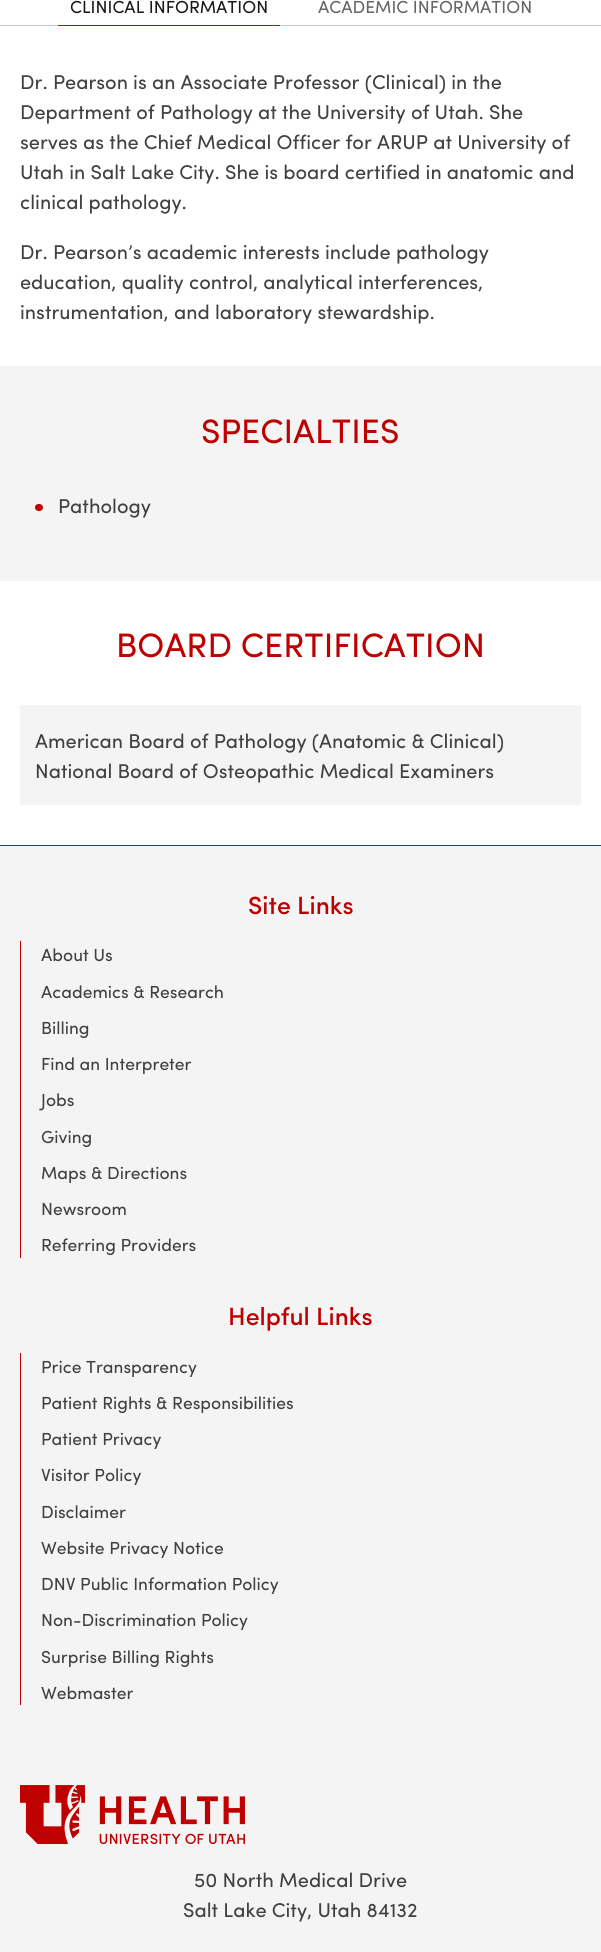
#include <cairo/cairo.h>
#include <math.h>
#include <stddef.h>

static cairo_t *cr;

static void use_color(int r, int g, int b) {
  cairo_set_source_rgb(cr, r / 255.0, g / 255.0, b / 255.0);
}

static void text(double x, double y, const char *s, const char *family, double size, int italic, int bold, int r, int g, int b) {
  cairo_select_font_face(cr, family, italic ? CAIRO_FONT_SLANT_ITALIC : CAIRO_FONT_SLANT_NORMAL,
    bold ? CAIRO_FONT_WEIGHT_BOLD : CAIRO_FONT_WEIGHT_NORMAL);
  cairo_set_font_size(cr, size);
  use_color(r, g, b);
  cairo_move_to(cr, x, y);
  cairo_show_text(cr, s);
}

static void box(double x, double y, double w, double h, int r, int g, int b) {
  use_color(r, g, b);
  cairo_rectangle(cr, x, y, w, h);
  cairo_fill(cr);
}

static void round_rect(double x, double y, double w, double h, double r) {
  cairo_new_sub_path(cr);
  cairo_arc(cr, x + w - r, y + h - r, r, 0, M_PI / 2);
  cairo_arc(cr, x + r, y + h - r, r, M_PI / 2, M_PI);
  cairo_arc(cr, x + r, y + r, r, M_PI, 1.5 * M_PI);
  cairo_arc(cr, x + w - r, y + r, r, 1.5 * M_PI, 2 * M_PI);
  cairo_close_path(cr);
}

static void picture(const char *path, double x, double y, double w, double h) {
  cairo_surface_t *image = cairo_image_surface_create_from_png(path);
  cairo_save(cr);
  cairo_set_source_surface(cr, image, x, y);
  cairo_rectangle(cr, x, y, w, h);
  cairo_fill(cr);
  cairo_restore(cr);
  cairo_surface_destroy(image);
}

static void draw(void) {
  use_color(255, 255, 255);
  cairo_paint(cr);
  box(0, 25, 601, 1, 204, 204, 204);
  box(58, 25, 222, 1, 190, 0, 0);
  box(0, 366, 601, 215, 244, 244, 245);
  use_color(190, 0, 0);
  round_rect(35, 504, 8, 7, 3.5);
  cairo_fill(cr);
  box(20, 705, 561, 100, 244, 244, 245);
  box(0, 846, 601, 1106, 244, 244, 245);
  box(0, 845, 601, 1, 190, 0, 0);
  box(20, 941, 1, 317, 190, 0, 0);
  box(20, 1353, 1, 352, 190, 0, 0);
  picture("img_01.png", 20, 1785, 225, 59);
  text(70, 13, "CLINICAL INFORMATION", "Sofia", 17.5, 0, 0, 26, 26, 26);
  text(318, 13, "ACADEMIC INFORMATION", "Sofia", 17.5, 0, 0, 102, 102, 102);
  text(20, 89, "Dr. Pearson is an Associate Professor (Clinical) in the", "Sofia", 20, 0, 0, 65, 64, 66);
  text(20, 119, "Department of Pathology at the University of Utah. She", "Sofia", 20, 0, 0, 65, 64, 66);
  text(20, 149, "serves as the Chief Medical Officer for ARUP at University of", "Sofia", 20, 0, 0, 65, 64, 66);
  text(20, 179, "Utah in Salt Lake City. She is board certified in anatomic and", "Sofia", 20, 0, 0, 65, 64, 66);
  text(20, 209, "clinical pathology.", "Sofia", 20, 0, 0, 65, 64, 66);
  text(20, 259, "Dr. Pearson’s academic interests include pathology", "Sofia", 20, 0, 0, 65, 64, 66);
  text(20, 289, "education, quality control, analytical interferences,", "Sofia", 20, 0, 0, 65, 64, 66);
  text(20, 319, "instrumentation, and laboratory stewardship.", "Sofia", 20, 0, 0, 65, 64, 66);
  text(201, 443, "SPECIALTIES", "Sofia", 34, 0, 0, 190, 0, 0);
  text(58, 513, "Pathology", "Sofia", 20, 0, 0, 65, 64, 66);
  text(116, 657, "BOARD CERTIFICATION", "Sofia", 34, 0, 0, 190, 0, 0);
  text(35, 748, "American Board of Pathology (Anatomic & Clinical)", "Sofia", 20, 0, 0, 65, 64, 66);
  text(35, 778, "National Board of Osteopathic Medical Examiners", "Sofia", 20, 0, 0, 65, 64, 66);
  text(248, 914, "Site Links", "Sofia Medium", 25, 0, 0, 190, 0, 0);
  text(41, 961, "About Us", "Sofia", 17.5, 0, 0, 65, 64, 66);
  text(41, 998, "Academics & Research", "Sofia", 17.5, 0, 0, 65, 64, 66);
  text(41, 1034, "Billing", "Sofia", 17.5, 0, 0, 65, 64, 66);
  text(41, 1070, "Find an Interpreter", "Sofia", 17.5, 0, 0, 65, 64, 66);
  text(41, 1106, "Jobs", "Sofia", 17.5, 0, 0, 65, 64, 66);
  text(41, 1143, "Giving", "Sofia", 17.5, 0, 0, 65, 64, 66);
  text(41, 1179, "Maps & Directions", "Sofia", 17.5, 0, 0, 65, 64, 66);
  text(41, 1215, "Newsroom", "Sofia", 17.5, 0, 0, 65, 64, 66);
  text(41, 1251, "Referring Providers", "Sofia", 17.5, 0, 0, 65, 64, 66);
  text(228, 1325, "Helpful Links", "Sofia Medium", 25, 0, 0, 190, 0, 0);
  text(41, 1373, "Price Transparency", "Sofia", 17.5, 0, 0, 65, 64, 66);
  text(41, 1409, "Patient Rights & Responsibilities", "Sofia", 17.5, 0, 0, 65, 64, 66);
  text(41, 1445, "Patient Privacy", "Sofia", 17.5, 0, 0, 65, 64, 66);
  text(41, 1481, "Visitor Policy", "Sofia", 17.5, 0, 0, 65, 64, 66);
  text(41, 1518, "Disclaimer", "Sofia", 17.5, 0, 0, 65, 64, 66);
  text(41, 1554, "Website Privacy Notice", "Sofia", 17.5, 0, 0, 65, 64, 66);
  text(41, 1590, "DNV Public Information Policy", "Sofia", 17.5, 0, 0, 65, 64, 66);
  text(41, 1626, "Non-Discrimination Policy", "Sofia", 17.5, 0, 0, 65, 64, 66);
  text(41, 1663, "Surprise Billing Rights", "Sofia", 17.5, 0, 0, 65, 64, 66);
  text(41, 1699, "Webmaster", "Sofia", 17.5, 0, 0, 65, 64, 66);
  text(194, 1887, "50 North Medical Drive", "Sofia", 20, 0, 0, 65, 64, 66);
  text(183, 1917, "Salt Lake City, Utah 84132", "Sofia", 20, 0, 0, 65, 64, 66);
}

int main(void) {
  cairo_surface_t *surface = cairo_image_surface_create(CAIRO_FORMAT_RGB24, 601, 1952);
  cr = cairo_create(surface);
  cairo_font_options_t *options = cairo_font_options_create();
  cairo_font_options_set_hint_metrics(options, CAIRO_HINT_METRICS_OFF);
  cairo_font_options_set_hint_style(options, CAIRO_HINT_STYLE_NONE);
  cairo_set_font_options(cr, options);
  cairo_set_miter_limit(cr, 4);
  draw();
  cairo_surface_write_to_png(surface, "out.png");
  cairo_font_options_destroy(options);
  cairo_destroy(cr);
  cairo_surface_destroy(surface);
  return 0;
}
